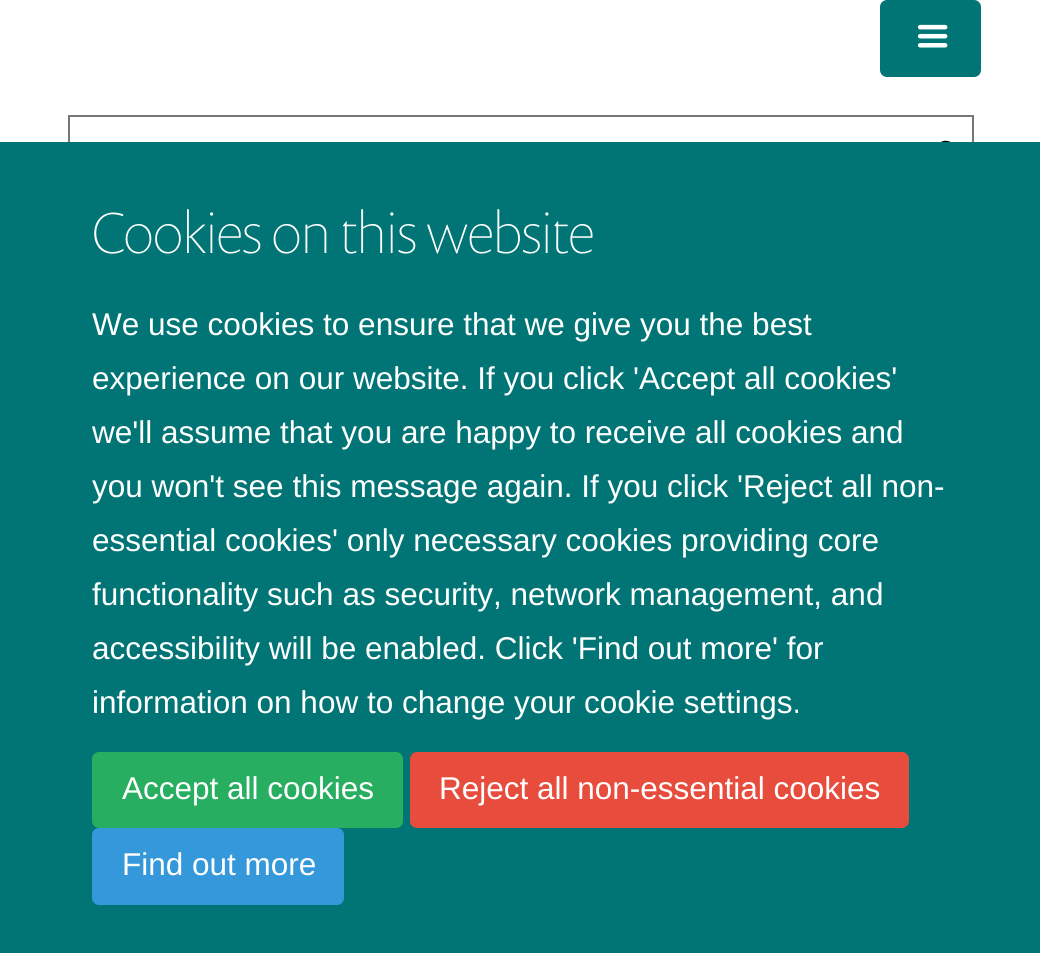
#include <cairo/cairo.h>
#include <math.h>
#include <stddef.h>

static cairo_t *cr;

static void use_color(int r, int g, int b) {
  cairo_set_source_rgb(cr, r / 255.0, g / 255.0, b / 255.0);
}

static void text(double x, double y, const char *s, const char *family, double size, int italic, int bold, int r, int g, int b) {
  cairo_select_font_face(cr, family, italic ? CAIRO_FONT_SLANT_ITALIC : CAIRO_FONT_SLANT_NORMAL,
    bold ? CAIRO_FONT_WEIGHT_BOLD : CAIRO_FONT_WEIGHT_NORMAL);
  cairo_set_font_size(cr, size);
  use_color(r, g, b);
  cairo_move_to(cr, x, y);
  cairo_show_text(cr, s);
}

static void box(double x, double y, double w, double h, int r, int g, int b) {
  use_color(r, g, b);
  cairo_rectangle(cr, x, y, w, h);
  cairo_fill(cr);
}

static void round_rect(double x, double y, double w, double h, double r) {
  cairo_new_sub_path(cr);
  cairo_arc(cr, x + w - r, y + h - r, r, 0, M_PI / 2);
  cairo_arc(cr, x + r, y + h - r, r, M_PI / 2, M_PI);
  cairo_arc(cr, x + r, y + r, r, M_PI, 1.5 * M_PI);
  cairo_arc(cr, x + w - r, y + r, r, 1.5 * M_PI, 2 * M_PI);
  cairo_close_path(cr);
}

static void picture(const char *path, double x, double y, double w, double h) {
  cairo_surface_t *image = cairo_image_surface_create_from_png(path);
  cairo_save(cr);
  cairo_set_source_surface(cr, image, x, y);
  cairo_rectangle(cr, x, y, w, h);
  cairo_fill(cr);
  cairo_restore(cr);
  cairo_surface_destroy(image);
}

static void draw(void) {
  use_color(255, 255, 255);
  cairo_paint(cr);
  use_color(1, 117, 117);
  round_rect(881, 1, 99, 75, 6);
  cairo_fill_preserve(cr);
  cairo_stroke(cr);
  picture("img_01.png", 917, 24, 31, 24);
  cairo_rectangle(cr, 69, 116, 904, 77);
  use_color(119, 119, 119);
  cairo_stroke(cr);
  picture("img_02.png", 941, 140, 10, 2);
  box(0, 142, 1040, 811, 1, 117, 117);
  use_color(39, 174, 96);
  round_rect(93, 753, 309, 74, 6);
  cairo_fill_preserve(cr);
  cairo_stroke(cr);
  use_color(231, 76, 60);
  round_rect(411, 753, 497, 74, 6);
  cairo_fill_preserve(cr);
  cairo_stroke(cr);
  use_color(52, 152, 219);
  round_rect(93, 829, 250, 75, 6);
  cairo_fill_preserve(cr);
  cairo_stroke(cr);
  text(92, 253, "Cookies on this website", "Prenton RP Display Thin", 58.5, 0, 0, 255, 255, 255);
  text(92, 335, "We use cookies to ensure that we give you the best", "Liberation Sans", 31.5, 0, 0, 255, 255, 255);
  text(92, 389, "experience on our website. If you click 'Accept all cookies'", "Liberation Sans", 31.5, 0, 0, 255, 255, 255);
  text(92, 443, "we'll assume that you are happy to receive all cookies and", "Liberation Sans", 31.5, 0, 0, 255, 255, 255);
  text(92, 497, "you won't see this message again. If you click 'Reject all non-", "Liberation Sans", 31.5, 0, 0, 255, 255, 255);
  text(92, 551, "essential cookies' only necessary cookies providing core", "Liberation Sans", 31.5, 0, 0, 255, 255, 255);
  text(92, 605, "functionality such as security, network management, and", "Liberation Sans", 31.5, 0, 0, 255, 255, 255);
  text(92, 659, "accessibility will be enabled. Click 'Find out more' for", "Liberation Sans", 31.5, 0, 0, 255, 255, 255);
  text(92, 713, "information on how to change your cookie settings.", "Liberation Sans", 31.5, 0, 0, 255, 255, 255);
  text(122, 799, "Accept all cookies", "Liberation Sans", 31.5, 0, 0, 255, 255, 255);
  text(439, 799, "Reject all non-essential cookies", "Liberation Sans", 31.5, 0, 0, 255, 255, 255);
  text(122, 875, "Find out more", "Liberation Sans", 31.5, 0, 0, 255, 255, 255);
}

int main(void) {
  cairo_surface_t *surface = cairo_image_surface_create(CAIRO_FORMAT_RGB24, 1040, 953);
  cr = cairo_create(surface);
  cairo_font_options_t *options = cairo_font_options_create();
  cairo_font_options_set_hint_metrics(options, CAIRO_HINT_METRICS_OFF);
  cairo_font_options_set_hint_style(options, CAIRO_HINT_STYLE_NONE);
  cairo_set_font_options(cr, options);
  cairo_set_miter_limit(cr, 4);
  draw();
  cairo_surface_write_to_png(surface, "out.png");
  cairo_font_options_destroy(options);
  cairo_destroy(cr);
  cairo_surface_destroy(surface);
  return 0;
}
